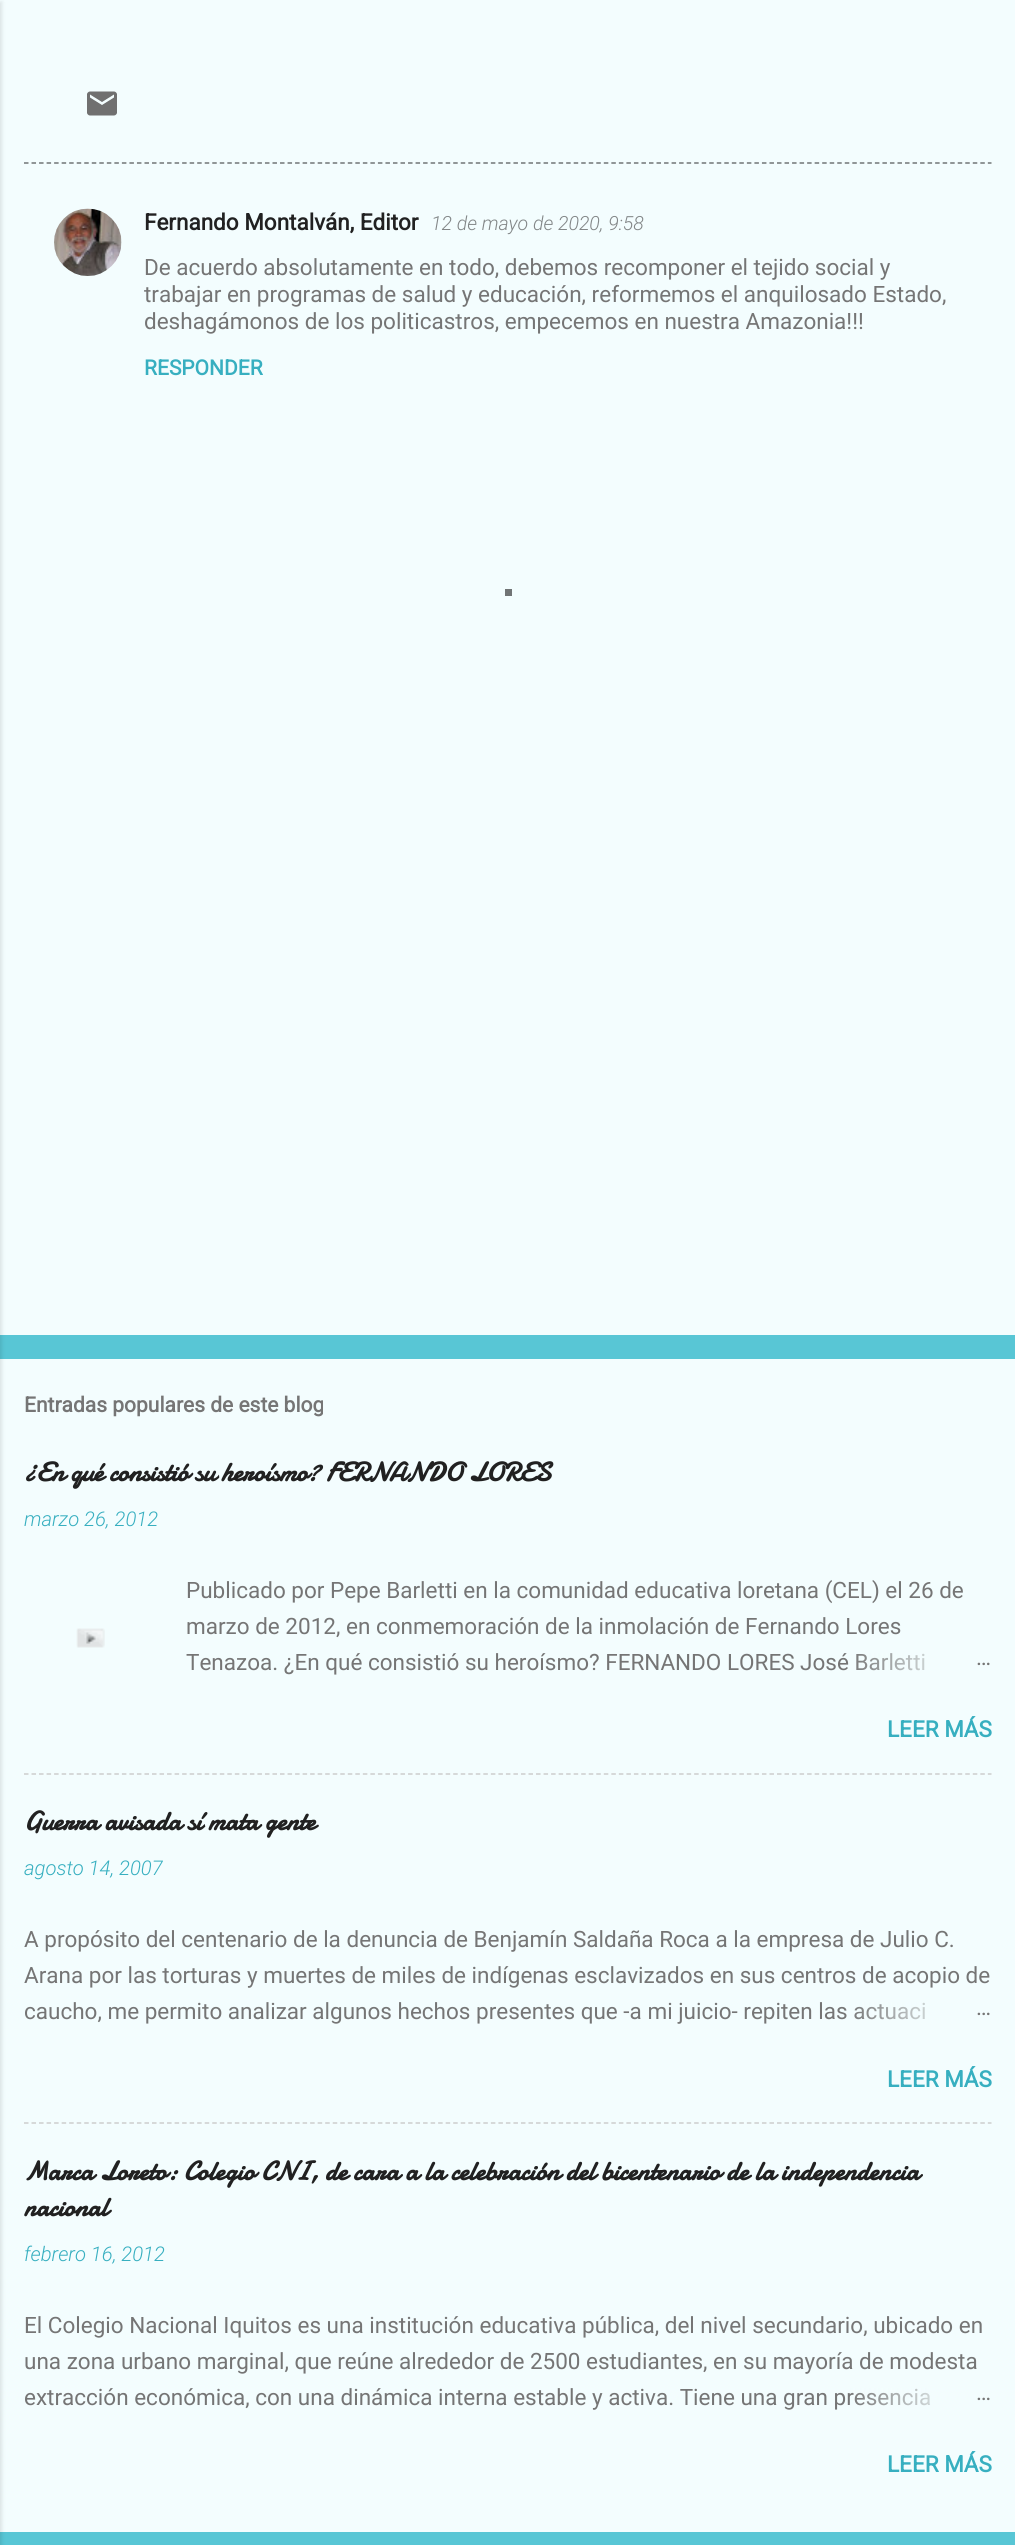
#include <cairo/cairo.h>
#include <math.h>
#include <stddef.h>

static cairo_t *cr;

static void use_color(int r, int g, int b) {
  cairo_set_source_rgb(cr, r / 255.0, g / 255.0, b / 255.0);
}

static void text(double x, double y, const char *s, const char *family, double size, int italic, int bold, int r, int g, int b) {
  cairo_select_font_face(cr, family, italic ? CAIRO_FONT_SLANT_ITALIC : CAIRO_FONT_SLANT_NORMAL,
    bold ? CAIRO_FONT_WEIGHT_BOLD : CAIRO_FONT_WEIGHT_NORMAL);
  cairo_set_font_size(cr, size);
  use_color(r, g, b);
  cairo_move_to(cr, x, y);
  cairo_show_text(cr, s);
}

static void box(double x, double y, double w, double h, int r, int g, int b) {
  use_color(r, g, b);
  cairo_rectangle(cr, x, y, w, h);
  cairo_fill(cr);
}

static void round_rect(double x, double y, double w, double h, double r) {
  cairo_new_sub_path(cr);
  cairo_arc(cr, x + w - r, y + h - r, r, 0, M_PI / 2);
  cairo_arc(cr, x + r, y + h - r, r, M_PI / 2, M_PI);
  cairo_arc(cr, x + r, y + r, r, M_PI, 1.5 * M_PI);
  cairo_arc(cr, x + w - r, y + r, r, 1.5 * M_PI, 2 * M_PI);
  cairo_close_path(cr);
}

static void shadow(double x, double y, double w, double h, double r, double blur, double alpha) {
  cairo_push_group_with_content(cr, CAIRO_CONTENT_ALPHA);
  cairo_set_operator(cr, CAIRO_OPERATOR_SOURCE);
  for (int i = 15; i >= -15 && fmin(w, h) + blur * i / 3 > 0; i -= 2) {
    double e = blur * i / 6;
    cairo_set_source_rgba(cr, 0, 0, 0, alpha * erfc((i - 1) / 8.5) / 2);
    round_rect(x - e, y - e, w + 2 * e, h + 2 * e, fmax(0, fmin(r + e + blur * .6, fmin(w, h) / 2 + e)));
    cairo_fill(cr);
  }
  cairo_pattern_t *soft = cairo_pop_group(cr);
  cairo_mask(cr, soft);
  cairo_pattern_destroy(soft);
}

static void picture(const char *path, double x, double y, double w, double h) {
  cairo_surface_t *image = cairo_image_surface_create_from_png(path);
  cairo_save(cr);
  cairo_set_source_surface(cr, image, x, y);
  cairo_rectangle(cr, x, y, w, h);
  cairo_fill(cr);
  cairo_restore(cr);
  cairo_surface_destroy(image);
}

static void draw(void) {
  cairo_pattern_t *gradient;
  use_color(88, 198, 213);
  cairo_paint(cr);
  box(0, 0, 1015, 1335, 243, 253, 254);
  box(0, 1359, 1015, 1173, 243, 253, 254);
  use_color(0, 0, 0);
  shadow(-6, 2, 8, 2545, 0, 2, 0.1);
  picture("img_01.png", 87, 91, 30, 25);
  cairo_new_path(cr);
  cairo_move_to(cr, 24, 163);
  cairo_line_to(cr, 991.5, 163);
  use_color(112, 116, 117);
  cairo_set_line_width(cr, 1.5);
  cairo_set_dash(cr, (double[]){4.5, 3.03}, 2, 0);
  cairo_stroke(cr);
  picture("img_02.png", 54, 208, 68, 68);
  picture("img_03.png", 76, 1628, 29, 20);
  cairo_new_path(cr);
  cairo_move_to(cr, 24, 1774);
  cairo_line_to(cr, 991.5, 1774);
  use_color(204, 204, 204);
  cairo_stroke(cr);
  cairo_new_path(cr);
  cairo_move_to(cr, 24, 2123);
  cairo_line_to(cr, 991.5, 2123);
  cairo_stroke(cr);
  box(505, 589, 7, 7, 112, 116, 117);
  text(144, 230, "Fernando Montalván, Editor", "Roboto", 22.5, 0, 1, 33, 33, 33);
  text(431, 230, "12 de mayo de 2020, 9:58", "Roboto Light", 19.5, 1, 0, 130, 134, 135);
  text(144, 275, "De acuerdo absolutamente en todo, debemos recomponer el tejido social y", "Roboto", 22.5, 0, 0, 117, 117, 117);
  text(144, 302, "trabajar en programas de salud y educación, reformemos el anquilosado Estado,", "Roboto", 22.5, 0, 0, 117, 117, 117);
  text(144, 329, "deshagámonos de los politicastros, empecemos en nuestra Amazonia!!!", "Roboto", 22.5, 0, 0, 117, 117, 117);
  text(144, 375, "RESPONDER", "Roboto", 21, 0, 1, 55, 175, 192);
  text(24, 1412, "Entradas populares de este blog", "Roboto", 21, 0, 1, 117, 117, 117);
  text(24, 1481, "¿En qué consistió su heroísmo? FERNANDO LORES", "Damion", 27, 0, 1, 33, 33, 33);
  text(24, 1526, "marzo 26, 2012", "Roboto Light", 20.25, 1, 0, 55, 175, 192);
  text(186, 1598, "Publicado por Pepe Barletti en la comunidad educativa loretana (CEL) el 26 de", "Roboto", 22.5, 0, 0, 117, 117, 117);
  text(186, 1634, "marzo de 2012, en conmemoración de la inmolación de Fernando Lores", "Roboto", 22.5, 0, 0, 117, 117, 117);
  text(186, 1670, "Tenazoa. ¿En qué consistió su heroísmo? FERNANDO LORES José Barletti", "Roboto", 22.5, 0, 0, 117, 117, 117);
  gradient = cairo_pattern_create_linear(992, 1662, 848, 1662);
  cairo_pattern_add_color_stop_rgba(gradient, 0, 0.953, 0.992, 0.996, 1);
  cairo_pattern_add_color_stop_rgba(gradient, 0.2, 0.953, 0.992, 0.996, 1);
  cairo_pattern_add_color_stop_rgba(gradient, 1, 0.953, 0.992, 0.996, 0);
  cairo_set_source(cr, gradient);
  cairo_pattern_destroy(gradient);
  cairo_rectangle(cr, 857, 1653, 68, 18);
  cairo_fill(cr);
  text(976, 1665, "…", "Roboto", 22.5, 0, 0, 117, 117, 117);
  text(887, 1737, "LEER MÁS", "Roboto", 22.5, 0, 1, 55, 175, 192);
  text(24, 1830, "Guerra avisada sí mata gente", "Damion", 27, 0, 1, 33, 33, 33);
  text(24, 1875, "agosto 14, 2007", "Roboto Light", 20.25, 1, 0, 55, 175, 192);
  text(24, 1947, "A propósito del centenario de la denuncia de Benjamín Saldaña Roca a la empresa de Julio C.", "Roboto", 22.5, 0, 0, 117, 117, 117);
  text(24, 1983, "Arana por las torturas y muertes de miles de indígenas esclavizados en sus centros de acopio de", "Roboto", 22.5, 0, 0, 117, 117, 117);
  text(24, 2019, "caucho, me permito analizar algunos hechos presentes que -a mi juicio- repiten las actuaci", "Roboto", 22.5, 0, 0, 117, 117, 117);
  gradient = cairo_pattern_create_linear(992, 2012, 848, 2012);
  cairo_pattern_add_color_stop_rgba(gradient, 0, 0.953, 0.992, 0.996, 1);
  cairo_pattern_add_color_stop_rgba(gradient, 0.2, 0.953, 0.992, 0.996, 1);
  cairo_pattern_add_color_stop_rgba(gradient, 1, 0.953, 0.992, 0.996, 0);
  cairo_set_source(cr, gradient);
  cairo_pattern_destroy(gradient);
  cairo_rectangle(cr, 854, 2002, 71, 18);
  cairo_fill(cr);
  text(976, 2015, "…", "Roboto", 22.5, 0, 0, 117, 117, 117);
  text(887, 2087, "LEER MÁS", "Roboto", 22.5, 0, 1, 55, 175, 192);
  text(24, 2180, "Marca Loreto: Colegio CNI, de cara a la celebración del bicentenario de la independencia", "Damion", 27, 0, 1, 33, 33, 33);
  text(24, 2216, "nacional", "Damion", 27, 0, 1, 33, 33, 33);
  text(24, 2261, "febrero 16, 2012", "Roboto Light", 20.25, 1, 0, 55, 175, 192);
  text(24, 2333, "El Colegio Nacional Iquitos es una institución educativa pública, del nivel secundario, ubicado en", "Roboto", 22.5, 0, 0, 117, 117, 117);
  text(24, 2369, "una zona urbano marginal, que reúne alrededor de 2500 estudiantes, en su mayoría de modesta", "Roboto", 22.5, 0, 0, 117, 117, 117);
  text(24, 2405, "extracción económica, con una dinámica interna estable y activa. Tiene una gran presencia", "Roboto", 22.5, 0, 0, 117, 117, 117);
  gradient = cairo_pattern_create_linear(992, 2397, 848, 2397);
  cairo_pattern_add_color_stop_rgba(gradient, 0, 0.953, 0.992, 0.996, 1);
  cairo_pattern_add_color_stop_rgba(gradient, 0.2, 0.953, 0.992, 0.996, 1);
  cairo_pattern_add_color_stop_rgba(gradient, 1, 0.953, 0.992, 0.996, 0);
  cairo_set_source(cr, gradient);
  cairo_pattern_destroy(gradient);
  cairo_rectangle(cr, 850, 2388, 80, 18);
  cairo_fill(cr);
  text(976, 2400, "…", "Roboto", 22.5, 0, 0, 117, 117, 117);
  text(887, 2472, "LEER MÁS", "Roboto", 22.5, 0, 1, 55, 175, 192);
}

int main(void) {
  cairo_surface_t *surface = cairo_image_surface_create(CAIRO_FORMAT_RGB24, 1015, 2545);
  cr = cairo_create(surface);
  cairo_font_options_t *options = cairo_font_options_create();
  cairo_font_options_set_hint_metrics(options, CAIRO_HINT_METRICS_OFF);
  cairo_font_options_set_hint_style(options, CAIRO_HINT_STYLE_NONE);
  cairo_set_font_options(cr, options);
  cairo_set_miter_limit(cr, 4);
  draw();
  cairo_surface_write_to_png(surface, "out.png");
  cairo_font_options_destroy(options);
  cairo_destroy(cr);
  cairo_surface_destroy(surface);
  return 0;
}
